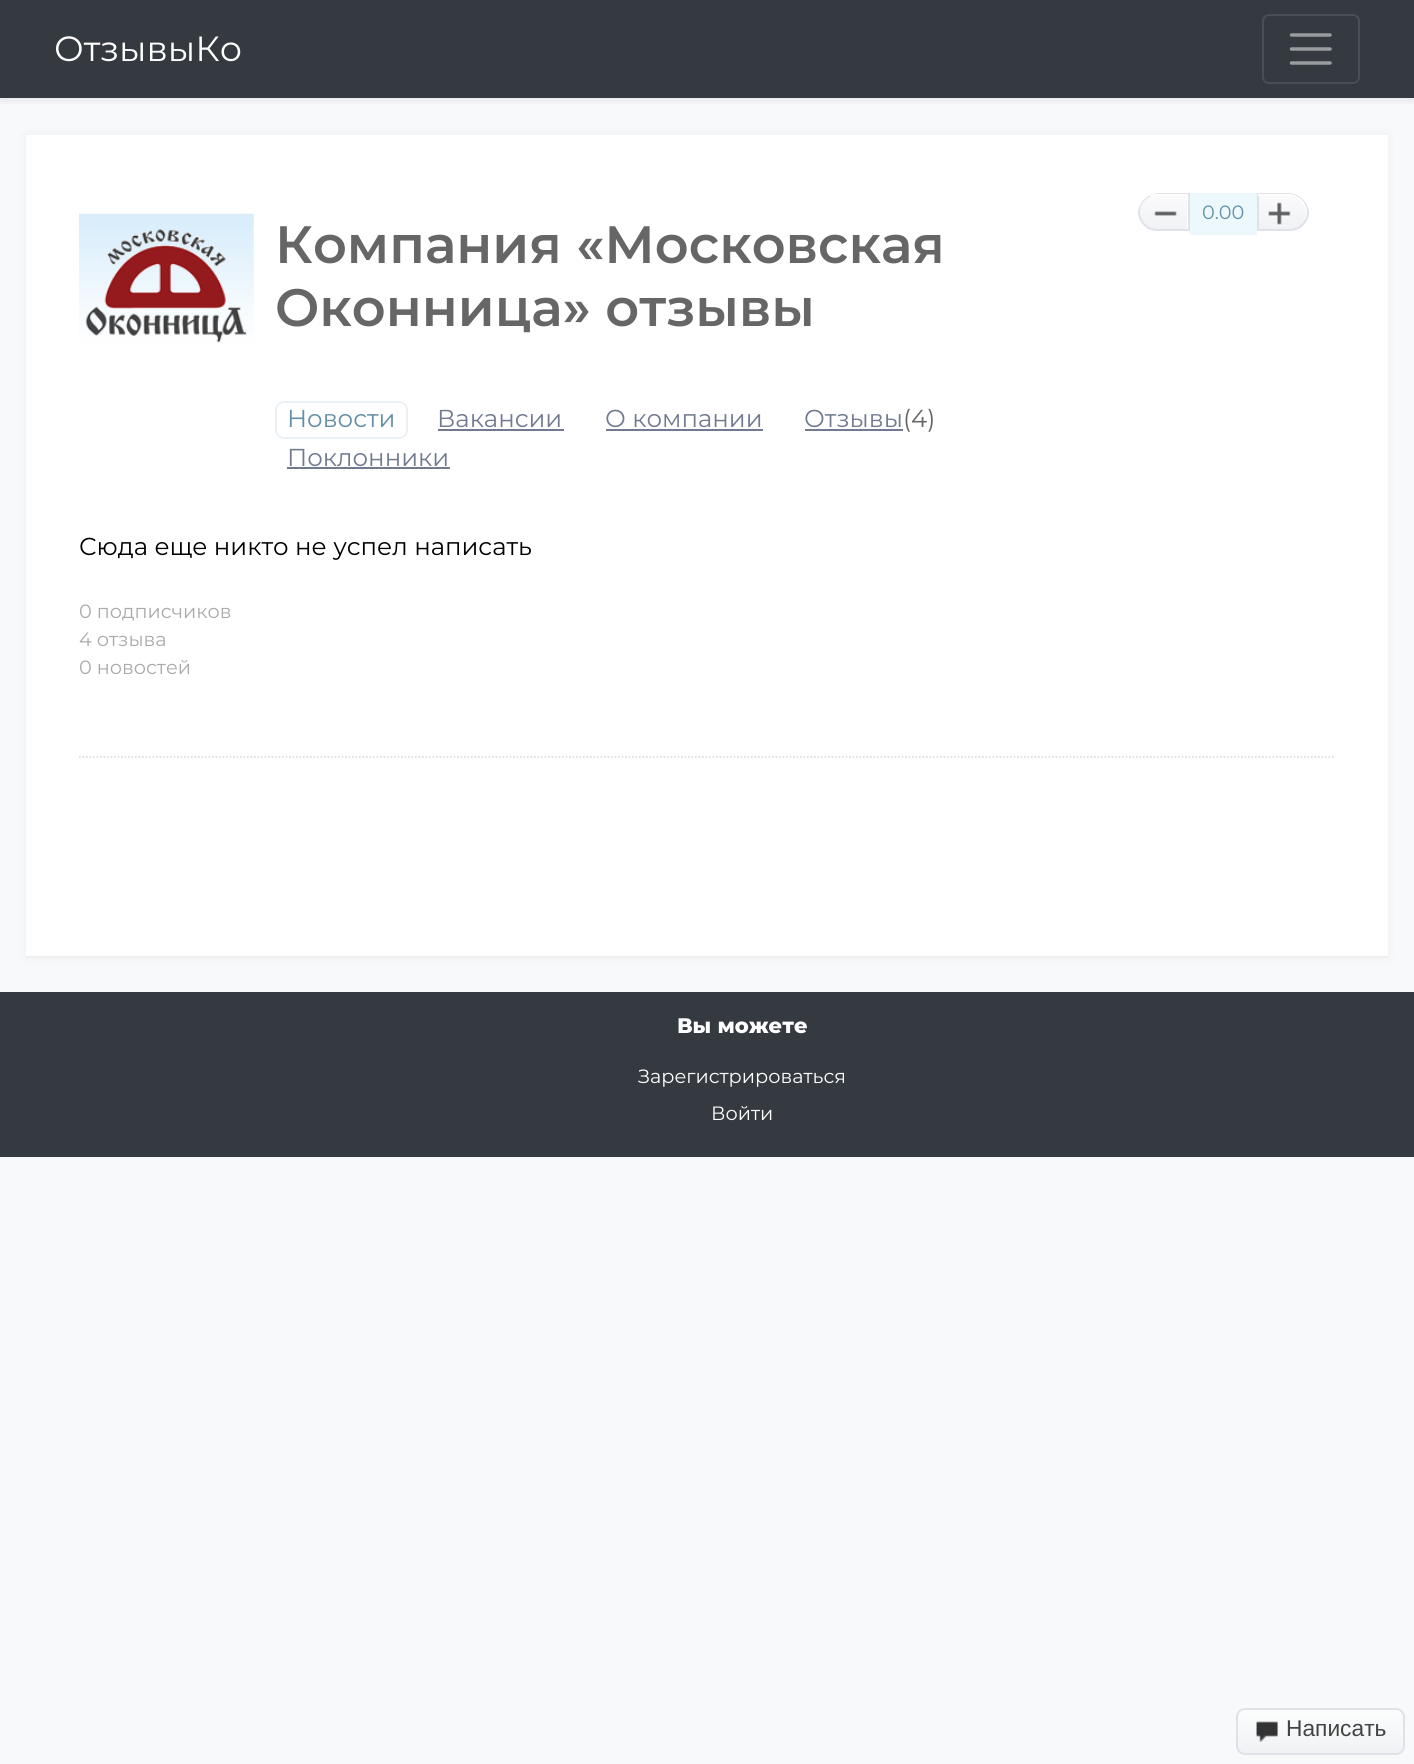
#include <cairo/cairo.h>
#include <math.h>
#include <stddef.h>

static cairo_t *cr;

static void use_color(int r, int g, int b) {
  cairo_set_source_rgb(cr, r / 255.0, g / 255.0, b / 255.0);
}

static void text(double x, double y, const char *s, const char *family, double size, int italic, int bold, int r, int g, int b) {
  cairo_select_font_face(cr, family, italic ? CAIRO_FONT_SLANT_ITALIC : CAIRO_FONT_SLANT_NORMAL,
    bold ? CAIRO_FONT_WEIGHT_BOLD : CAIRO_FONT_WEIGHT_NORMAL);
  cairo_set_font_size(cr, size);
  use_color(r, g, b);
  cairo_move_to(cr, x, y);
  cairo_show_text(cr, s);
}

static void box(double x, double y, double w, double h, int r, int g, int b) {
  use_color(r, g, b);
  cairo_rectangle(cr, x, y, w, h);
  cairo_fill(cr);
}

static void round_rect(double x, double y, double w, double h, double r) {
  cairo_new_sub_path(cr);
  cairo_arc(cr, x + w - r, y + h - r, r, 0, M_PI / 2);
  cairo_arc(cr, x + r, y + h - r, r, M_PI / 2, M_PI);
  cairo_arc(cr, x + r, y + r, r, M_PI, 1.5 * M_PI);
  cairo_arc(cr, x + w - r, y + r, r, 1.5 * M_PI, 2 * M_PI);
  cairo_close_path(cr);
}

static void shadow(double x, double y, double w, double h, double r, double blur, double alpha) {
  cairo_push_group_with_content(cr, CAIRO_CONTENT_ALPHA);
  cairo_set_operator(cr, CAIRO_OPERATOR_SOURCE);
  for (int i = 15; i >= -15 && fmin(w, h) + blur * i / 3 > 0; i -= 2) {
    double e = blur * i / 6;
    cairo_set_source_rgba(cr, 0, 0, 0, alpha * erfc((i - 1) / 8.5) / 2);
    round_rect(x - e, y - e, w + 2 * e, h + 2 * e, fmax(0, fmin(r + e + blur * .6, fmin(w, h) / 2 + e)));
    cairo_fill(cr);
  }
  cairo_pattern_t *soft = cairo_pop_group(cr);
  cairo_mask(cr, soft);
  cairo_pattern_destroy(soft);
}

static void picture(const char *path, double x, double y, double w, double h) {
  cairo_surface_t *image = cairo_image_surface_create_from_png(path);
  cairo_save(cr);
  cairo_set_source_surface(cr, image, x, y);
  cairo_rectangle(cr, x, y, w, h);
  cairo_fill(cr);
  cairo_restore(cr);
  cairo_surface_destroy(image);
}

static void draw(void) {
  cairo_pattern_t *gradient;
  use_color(248, 249, 250);
  cairo_paint(cr);
  box(0, 0, 1414, 98, 52, 58, 64);
  cairo_save(cr);
  cairo_rectangle(cr, 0, 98, 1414, 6);
  cairo_clip(cr);
  use_color(0, 0, 0);
  shadow(0, 4, 1414, 98, 0, 3.5, 0.07);
  cairo_restore(cr);
  round_rect(1263, 15, 96, 68, 6);
  use_color(72, 78, 83);
  cairo_stroke(cr);
  cairo_new_path(cr);
  cairo_move_to(cr, 1291.5, 35);
  cairo_line_to(cr, 1330, 35);
  cairo_move_to(cr, 1291.5, 49);
  cairo_line_to(cr, 1330, 49);
  cairo_move_to(cr, 1291.5, 63);
  cairo_line_to(cr, 1330, 63);
  use_color(154, 157, 160);
  cairo_set_line_width(cr, 3.5);
  cairo_set_line_cap(cr, CAIRO_LINE_CAP_ROUND);
  cairo_stroke(cr);
  use_color(0, 0, 0);
  shadow(26, 135, 1362, 822, 0, 4.5, 0.05);
  box(26, 135, 1362, 821, 255, 255, 255);
  box(26, 956, 1362, 2, 238, 238, 238);
  cairo_save(cr);
  round_rect(1138, 193, 171, 42, 21);
  cairo_clip(cr);
  cairo_new_path(cr);
  cairo_move_to(cr, 1157, 193);
  cairo_line_to(cr, 1190, 193);
  cairo_line_to(cr, 1190, 231);
  cairo_line_to(cr, 1157, 231);
  cairo_curve_to(cr, 1146.5, 231, 1138, 222.5, 1138, 212);
  cairo_curve_to(cr, 1138, 201.5, 1146.5, 193, 1157, 193);
  cairo_close_path(cr);
  cairo_clip(cr);
  gradient = cairo_pattern_create_linear(1164, 194, 1164, 229);
  cairo_pattern_add_color_stop_rgba(gradient, 0, 0.984, 0.984, 0.988, 1);
  cairo_pattern_add_color_stop_rgba(gradient, 1, 0.941, 0.949, 0.961, 1);
  cairo_set_source(cr, gradient);
  cairo_pattern_destroy(gradient);
  cairo_rectangle(cr, 1138, 194, 49, 35);
  cairo_fill(cr);
  cairo_restore(cr);
  use_color(223, 227, 232);
  cairo_set_fill_rule(cr, CAIRO_FILL_RULE_EVEN_ODD);
  cairo_new_path(cr);
  cairo_move_to(cr, 1159, 193);
  cairo_curve_to(cr, 1148, 193, 1139, 202, 1138, 213);
  cairo_curve_to(cr, 1139, 223, 1147, 231, 1157, 231);
  cairo_line_to(cr, 1190, 231);
  cairo_line_to(cr, 1190, 193);
  cairo_close_path(cr);
  cairo_move_to(cr, 1157, 195);
  cairo_curve_to(cr, 1148, 195, 1140, 203, 1140, 212);
  cairo_curve_to(cr, 1140, 221, 1148, 229, 1157, 229);
  cairo_line_to(cr, 1188, 229);
  cairo_line_to(cr, 1188, 195);
  cairo_close_path(cr);
  cairo_fill(cr);
  cairo_save(cr);
  cairo_set_fill_rule(cr, CAIRO_FILL_RULE_WINDING);
  round_rect(1138, 193, 171, 42, 21);
  cairo_clip(cr);
  cairo_new_path(cr);
  cairo_move_to(cr, 1156.5, 194);
  cairo_line_to(cr, 1188, 194);
  cairo_line_to(cr, 1188, 229);
  cairo_line_to(cr, 1156.5, 229);
  cairo_curve_to(cr, 1147, 229, 1139, 221, 1139, 211.5);
  cairo_curve_to(cr, 1139, 202, 1147, 194, 1156.5, 194);
  cairo_close_path(cr);
  cairo_clip(cr);
  box(1149, 194, 39, 2, 254, 254, 254);
  cairo_restore(cr);
  box(1187, 194, 1, 35, 255, 255, 255);
  picture("img_01.png", 1154, 211, 23, 5);
  box(1190, 193, 67, 42, 237, 248, 253);
  cairo_save(cr);
  cairo_set_fill_rule(cr, CAIRO_FILL_RULE_WINDING);
  round_rect(1138, 193, 171, 42, 21);
  cairo_clip(cr);
  cairo_new_path(cr);
  cairo_move_to(cr, 1257, 193);
  cairo_line_to(cr, 1290, 193);
  cairo_curve_to(cr, 1300.5, 193, 1309, 201.5, 1309, 212);
  cairo_curve_to(cr, 1309, 222.5, 1300.5, 231, 1290, 231);
  cairo_line_to(cr, 1257, 231);
  cairo_close_path(cr);
  cairo_clip(cr);
  gradient = cairo_pattern_create_linear(1283, 194, 1283, 229);
  cairo_pattern_add_color_stop_rgba(gradient, 0, 0.984, 0.984, 0.988, 1);
  cairo_pattern_add_color_stop_rgba(gradient, 1, 0.941, 0.949, 0.961, 1);
  cairo_set_source(cr, gradient);
  cairo_pattern_destroy(gradient);
  cairo_rectangle(cr, 1259, 194, 50, 35);
  cairo_fill(cr);
  cairo_restore(cr);
  use_color(223, 227, 232);
  cairo_new_path(cr);
  cairo_move_to(cr, 1257, 193);
  cairo_line_to(cr, 1257, 231);
  cairo_line_to(cr, 1290, 231);
  cairo_curve_to(cr, 1300, 231, 1308, 223, 1309, 213);
  cairo_curve_to(cr, 1308, 202, 1299, 193, 1288, 193);
  cairo_close_path(cr);
  cairo_move_to(cr, 1259, 195);
  cairo_line_to(cr, 1259, 229);
  cairo_line_to(cr, 1290, 229);
  cairo_curve_to(cr, 1299, 229, 1307, 221, 1307, 212);
  cairo_curve_to(cr, 1307, 203, 1299, 195, 1290, 195);
  cairo_close_path(cr);
  cairo_fill(cr);
  use_color(254, 254, 254);
  cairo_set_fill_rule(cr, CAIRO_FILL_RULE_WINDING);
  cairo_new_path(cr);
  cairo_move_to(cr, 1258, 194);
  cairo_line_to(cr, 1291, 194);
  cairo_curve_to(cr, 1295, 195, 1299, 197, 1302, 200);
  cairo_line_to(cr, 1300, 201);
  cairo_curve_to(cr, 1297, 198, 1293, 196, 1288, 196);
  cairo_line_to(cr, 1258, 196);
  cairo_close_path(cr);
  cairo_fill(cr);
  use_color(255, 255, 255);
  cairo_new_path(cr);
  cairo_move_to(cr, 1301.5, 200);
  cairo_curve_to(cr, 1306.5, 205, 1308.5, 212.5, 1305.5, 219);
  cairo_curve_to(cr, 1307, 212.5, 1305.5, 205.5, 1300.5, 201);
  cairo_close_path(cr);
  cairo_fill(cr);
  picture("img_02.png", 1268, 202, 23, 24);
  picture("img_03.png", 79, 213, 175, 130);
  round_rect(276, 402, 131, 36, 8);
  use_color(235, 240, 244);
  cairo_set_line_width(cr, 2);
  cairo_set_line_cap(cr, CAIRO_LINE_CAP_BUTT);
  cairo_stroke(cr);
  box(438, 429, 126, 2, 114, 122, 144);
  box(606, 429, 157, 2, 114, 122, 144);
  box(805, 429, 98, 2, 114, 122, 144);
  box(287, 467, 163, 2, 114, 122, 144);
  cairo_new_path(cr);
  cairo_move_to(cr, 79, 757);
  cairo_line_to(cr, 1335, 757);
  use_color(220, 225, 230);
  cairo_set_line_width(cr, 1.8);
  cairo_set_dash(cr, (double[]){1.75, 1.75}, 2, 0);
  cairo_stroke(cr);
  box(0, 992, 1414, 165, 52, 58, 64);
  cairo_save(cr);
  round_rect(1236, 1708, 169, 47, 9);
  cairo_clip(cr);
  gradient = cairo_pattern_create_linear(1320, 1710, 1320, 1754);
  cairo_pattern_add_color_stop_rgba(gradient, 0, 0.984, 0.988, 0.988, 1);
  cairo_pattern_add_color_stop_rgba(gradient, 1, 0.941, 0.949, 0.961, 1);
  cairo_set_source(cr, gradient);
  cairo_pattern_destroy(gradient);
  cairo_rectangle(cr, 1236, 1710, 169, 44);
  cairo_fill(cr);
  cairo_restore(cr);
  round_rect(1237, 1709, 167, 45, 8);
  use_color(223, 227, 232);
  cairo_set_line_width(cr, 2);
  cairo_set_dash(cr, NULL, 0, 0);
  cairo_stroke(cr);
  picture("img_04.png", 1256, 1721, 22, 21);
  text(54, 61, "ОтзывыКо", "Montserrat", 35, 0, 0, 255, 255, 255);
  text(1202, 219, "0.00", "Montserrat", 19.25, 0, 0, 98, 143, 165);
  text(275, 263, "Компания «Московская", "Montserrat SemiBold", 52.5, 0, 0, 102, 102, 102);
  text(275, 326, "Оконница» отзывы", "Montserrat SemiBold", 52.5, 0, 0, 102, 102, 102);
  text(287, 427, "Новости", "Montserrat", 24.5, 0, 0, 98, 143, 165);
  text(437, 427, "Вакансии", "Montserrat", 24.5, 0, 0, 114, 122, 144);
  text(605, 427, "О компании", "Montserrat", 24.5, 0, 0, 114, 122, 144);
  text(804, 427, "Отзывы", "Montserrat", 24.5, 0, 0, 114, 122, 144);
  text(903, 427, "(4)", "Montserrat", 24.5, 0, 0, 102, 102, 102);
  text(287, 466, "Поклонники", "Montserrat", 24.5, 0, 0, 114, 122, 144);
  text(79, 555, "Сюда еще никто не успел написать", "Montserrat", 24.5, 0, 0, 0, 0, 0);
  text(79, 618, "0 подписчиков", "Montserrat", 19.25, 0, 0, 170, 170, 170);
  text(79, 646, "4 отзыва", "Montserrat", 19.25, 0, 0, 170, 170, 170);
  text(79, 674, "0 новостей", "Montserrat", 19.25, 0, 0, 170, 170, 170);
  text(677, 1033, "Вы можете", "Montserrat ExtraBold", 21, 0, 0, 255, 255, 255);
  text(638, 1083, "Зарегистрироваться", "Montserrat", 19.25, 0, 0, 255, 255, 255);
  text(711, 1120, "Войти", "Montserrat", 19.25, 0, 0, 255, 255, 255);
  text(1286, 1736, "Написать", "Liberation Sans", 22.75, 0, 0, 67, 67, 67);
}

int main(void) {
  cairo_surface_t *surface = cairo_image_surface_create(CAIRO_FORMAT_RGB24, 1414, 1764);
  cr = cairo_create(surface);
  cairo_font_options_t *options = cairo_font_options_create();
  cairo_font_options_set_hint_metrics(options, CAIRO_HINT_METRICS_OFF);
  cairo_font_options_set_hint_style(options, CAIRO_HINT_STYLE_NONE);
  cairo_set_font_options(cr, options);
  cairo_set_miter_limit(cr, 4);
  draw();
  cairo_surface_write_to_png(surface, "out.png");
  cairo_font_options_destroy(options);
  cairo_destroy(cr);
  cairo_surface_destroy(surface);
  return 0;
}
